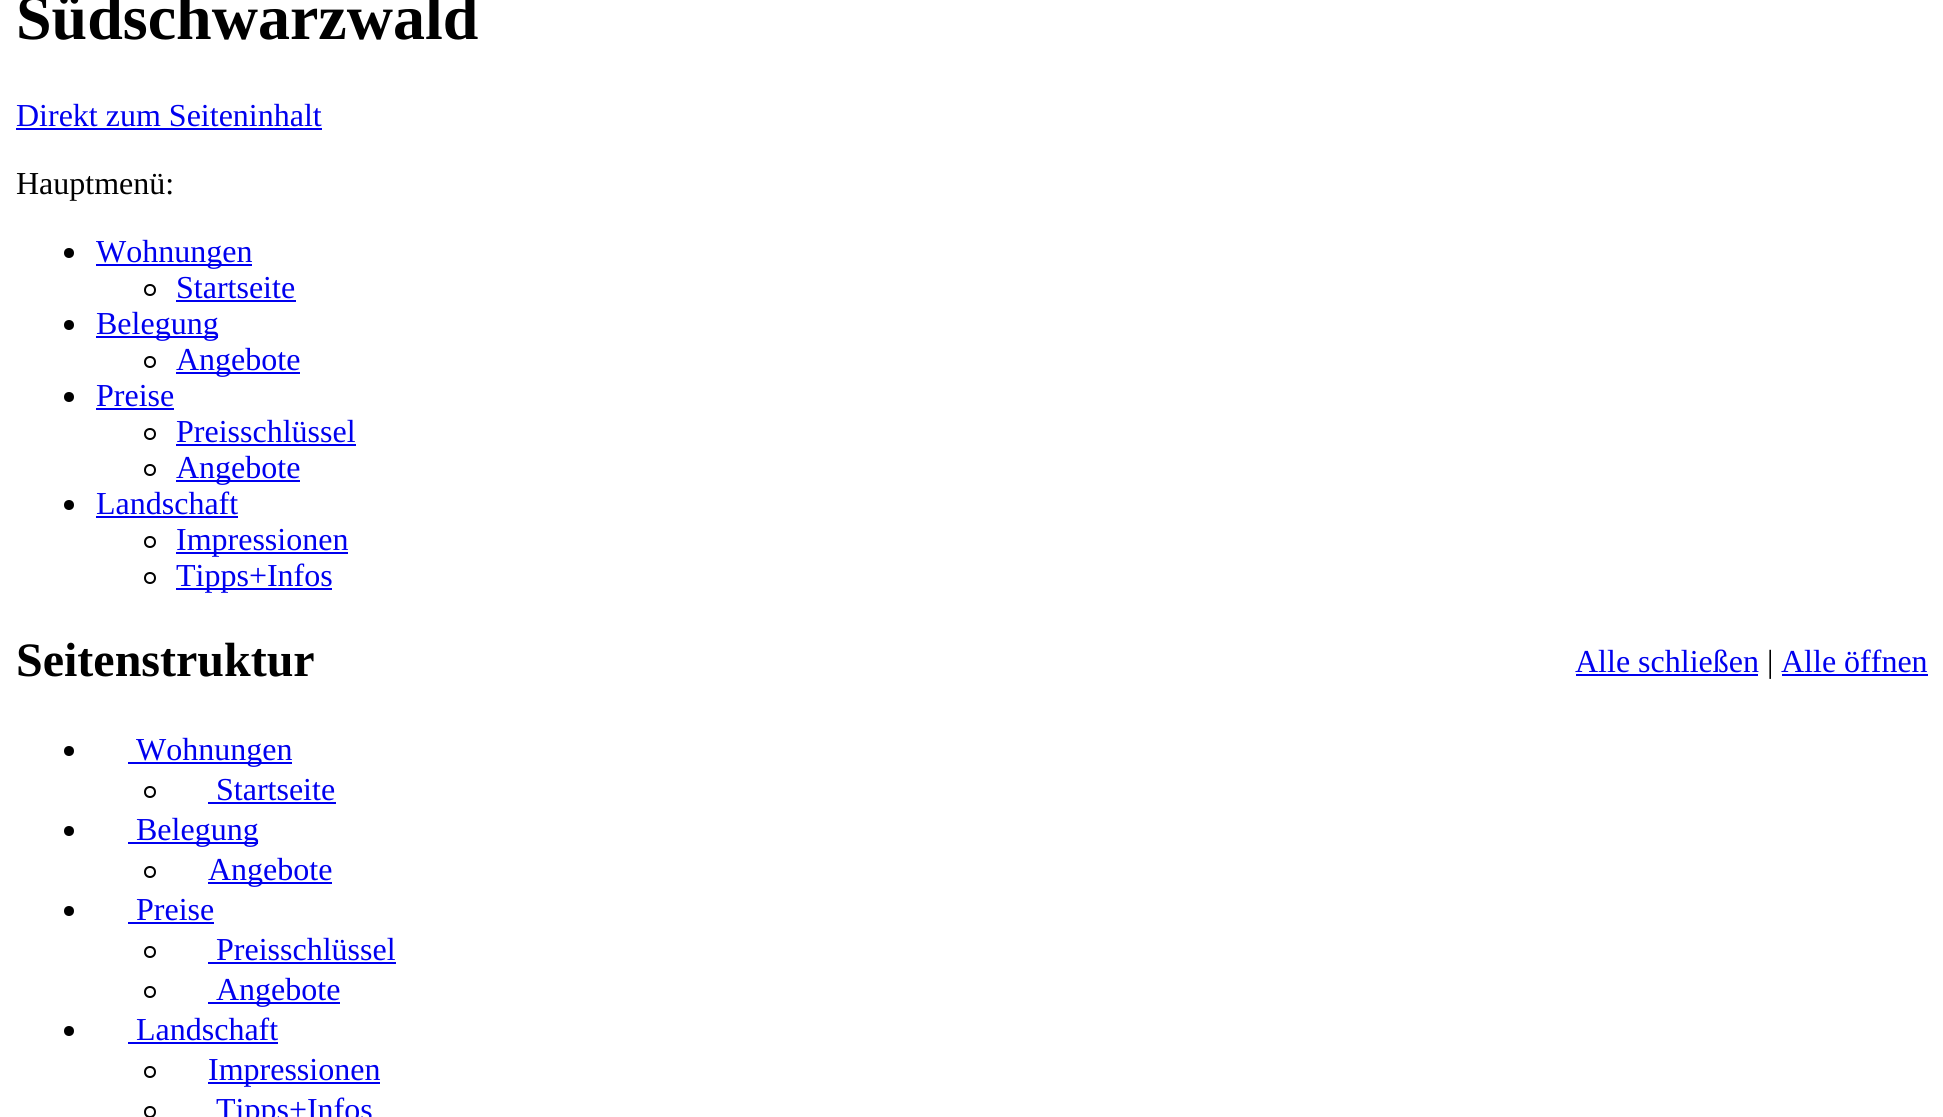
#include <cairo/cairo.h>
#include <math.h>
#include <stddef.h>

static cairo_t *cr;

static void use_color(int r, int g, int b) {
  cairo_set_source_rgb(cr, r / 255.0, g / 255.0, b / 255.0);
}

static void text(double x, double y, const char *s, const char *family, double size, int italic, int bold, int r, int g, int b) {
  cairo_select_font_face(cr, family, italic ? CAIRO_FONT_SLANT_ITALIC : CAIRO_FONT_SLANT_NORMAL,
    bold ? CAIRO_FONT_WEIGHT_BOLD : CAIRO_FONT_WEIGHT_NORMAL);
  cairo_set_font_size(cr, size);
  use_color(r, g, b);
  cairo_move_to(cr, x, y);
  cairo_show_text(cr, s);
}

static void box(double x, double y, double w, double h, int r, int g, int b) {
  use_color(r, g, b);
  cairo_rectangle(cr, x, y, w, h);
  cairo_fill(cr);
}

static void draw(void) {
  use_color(255, 255, 255);
  cairo_paint(cr);
  box(16, 128, 306, 2, 0, 0, 238);
  use_color(0, 0, 0);
  cairo_arc(cr, 69, 253, 5, 0, 2 * M_PI);
  cairo_fill(cr);
  box(96, 264, 156, 2, 0, 0, 238);
  cairo_arc(cr, 150, 290, 5, 0, 2 * M_PI);
  use_color(0, 0, 0);
  cairo_stroke(cr);
  box(176, 300, 120, 2, 0, 0, 238);
  use_color(0, 0, 0);
  cairo_arc(cr, 69, 325, 5, 0, 2 * M_PI);
  cairo_fill(cr);
  box(96, 336, 122, 2, 0, 0, 238);
  cairo_arc(cr, 150, 362, 5, 0, 2 * M_PI);
  use_color(0, 0, 0);
  cairo_stroke(cr);
  box(176, 372, 124, 2, 0, 0, 238);
  use_color(0, 0, 0);
  cairo_arc(cr, 69, 397, 5, 0, 2 * M_PI);
  cairo_fill(cr);
  box(96, 408, 78, 2, 0, 0, 238);
  cairo_arc(cr, 150, 434, 5, 0, 2 * M_PI);
  use_color(0, 0, 0);
  cairo_stroke(cr);
  box(176, 444, 180, 2, 0, 0, 238);
  cairo_arc(cr, 150, 470, 5, 0, 2 * M_PI);
  use_color(0, 0, 0);
  cairo_stroke(cr);
  box(176, 480, 124, 2, 0, 0, 238);
  use_color(0, 0, 0);
  cairo_arc(cr, 69, 505, 5, 0, 2 * M_PI);
  cairo_fill(cr);
  box(96, 516, 142, 2, 0, 0, 238);
  cairo_arc(cr, 150, 542, 5, 0, 2 * M_PI);
  use_color(0, 0, 0);
  cairo_stroke(cr);
  box(176, 552, 172, 2, 0, 0, 238);
  cairo_arc(cr, 150, 578, 5, 0, 2 * M_PI);
  use_color(0, 0, 0);
  cairo_stroke(cr);
  box(176, 588, 156, 2, 0, 0, 238);
  box(1576, 674, 182, 2, 0, 0, 238);
  box(1782, 674, 146, 2, 0, 0, 238);
  use_color(0, 0, 0);
  cairo_arc(cr, 69, 751, 5, 0, 2 * M_PI);
  cairo_fill(cr);
  box(128, 762, 164, 2, 0, 0, 238);
  cairo_arc(cr, 150, 792, 5, 0, 2 * M_PI);
  use_color(0, 0, 0);
  cairo_stroke(cr);
  box(208, 802, 128, 2, 0, 0, 238);
  use_color(0, 0, 0);
  cairo_arc(cr, 69, 831, 5, 0, 2 * M_PI);
  cairo_fill(cr);
  box(128, 842, 130, 2, 0, 0, 238);
  cairo_arc(cr, 150, 872, 5, 0, 2 * M_PI);
  use_color(0, 0, 0);
  cairo_stroke(cr);
  box(208, 882, 124, 2, 0, 0, 238);
  use_color(0, 0, 0);
  cairo_arc(cr, 69, 911, 5, 0, 2 * M_PI);
  cairo_fill(cr);
  box(128, 922, 86, 2, 0, 0, 238);
  cairo_arc(cr, 150, 952, 5, 0, 2 * M_PI);
  use_color(0, 0, 0);
  cairo_stroke(cr);
  box(208, 962, 188, 2, 0, 0, 238);
  cairo_arc(cr, 150, 992, 5, 0, 2 * M_PI);
  use_color(0, 0, 0);
  cairo_stroke(cr);
  box(208, 1002, 132, 2, 0, 0, 238);
  use_color(0, 0, 0);
  cairo_arc(cr, 69, 1031, 5, 0, 2 * M_PI);
  cairo_fill(cr);
  box(128, 1042, 150, 2, 0, 0, 238);
  cairo_arc(cr, 150, 1072, 5, 0, 2 * M_PI);
  use_color(0, 0, 0);
  cairo_stroke(cr);
  box(208, 1082, 172, 2, 0, 0, 238);
  cairo_arc(cr, 150, 1112, 5, 0, 2 * M_PI);
  use_color(0, 0, 0);
  cairo_stroke(cr);
  text(16, 39, "Südschwarzwald", "Liberation Serif", 64, 0, 1, 0, 0, 0);
  text(16, 126, "Direkt zum Seiteninhalt", "Liberation Serif", 32, 0, 0, 0, 0, 238);
  text(16, 194, "Hauptmenü:", "Liberation Serif", 32, 0, 0, 0, 0, 0);
  text(96, 262, "Wohnungen", "Liberation Serif", 32, 0, 0, 0, 0, 238);
  text(176, 298, "Startseite", "Liberation Serif", 32, 0, 0, 0, 0, 238);
  text(96, 334, "Belegung", "Liberation Serif", 32, 0, 0, 0, 0, 238);
  text(176, 370, "Angebote", "Liberation Serif", 32, 0, 0, 0, 0, 238);
  text(96, 406, "Preise", "Liberation Serif", 32, 0, 0, 0, 0, 238);
  text(176, 442, "Preisschlüssel", "Liberation Serif", 32, 0, 0, 0, 0, 238);
  text(176, 478, "Angebote", "Liberation Serif", 32, 0, 0, 0, 0, 238);
  text(96, 514, "Landschaft", "Liberation Serif", 32, 0, 0, 0, 0, 238);
  text(176, 550, "Impressionen", "Liberation Serif", 32, 0, 0, 0, 0, 238);
  text(176, 586, "Tipps+Infos", "Liberation Serif", 32, 0, 0, 0, 0, 238);
  text(16, 676, "Seitenstruktur", "Liberation Serif", 48, 0, 1, 0, 0, 0);
  text(1575, 672, "Alle schließen", "Liberation Serif", 32, 0, 0, 0, 0, 238);
  text(1767, 672, "|", "Liberation Serif", 32, 0, 0, 0, 0, 0);
  text(1781, 672, "Alle öffnen", "Liberation Serif", 32, 0, 0, 0, 0, 238);
  text(136, 760, "Wohnungen", "Liberation Serif", 32, 0, 0, 0, 0, 238);
  text(216, 800, "Startseite", "Liberation Serif", 32, 0, 0, 0, 0, 238);
  text(136, 840, "Belegung", "Liberation Serif", 32, 0, 0, 0, 0, 238);
  text(208, 880, "Angebote", "Liberation Serif", 32, 0, 0, 0, 0, 238);
  text(136, 920, "Preise", "Liberation Serif", 32, 0, 0, 0, 0, 238);
  text(216, 960, "Preisschlüssel", "Liberation Serif", 32, 0, 0, 0, 0, 238);
  text(216, 1000, "Angebote", "Liberation Serif", 32, 0, 0, 0, 0, 238);
  text(136, 1040, "Landschaft", "Liberation Serif", 32, 0, 0, 0, 0, 238);
  text(208, 1080, "Impressionen", "Liberation Serif", 32, 0, 0, 0, 0, 238);
  text(216, 1120, "Tipps+Infos", "Liberation Serif", 32, 0, 0, 0, 0, 238);
}

int main(void) {
  cairo_surface_t *surface = cairo_image_surface_create(CAIRO_FORMAT_RGB24, 1943, 1117);
  cr = cairo_create(surface);
  cairo_font_options_t *options = cairo_font_options_create();
  cairo_font_options_set_hint_metrics(options, CAIRO_HINT_METRICS_OFF);
  cairo_font_options_set_hint_style(options, CAIRO_HINT_STYLE_NONE);
  cairo_set_font_options(cr, options);
  cairo_set_miter_limit(cr, 4);
  draw();
  cairo_surface_write_to_png(surface, "out.png");
  cairo_font_options_destroy(options);
  cairo_destroy(cr);
  cairo_surface_destroy(surface);
  return 0;
}
